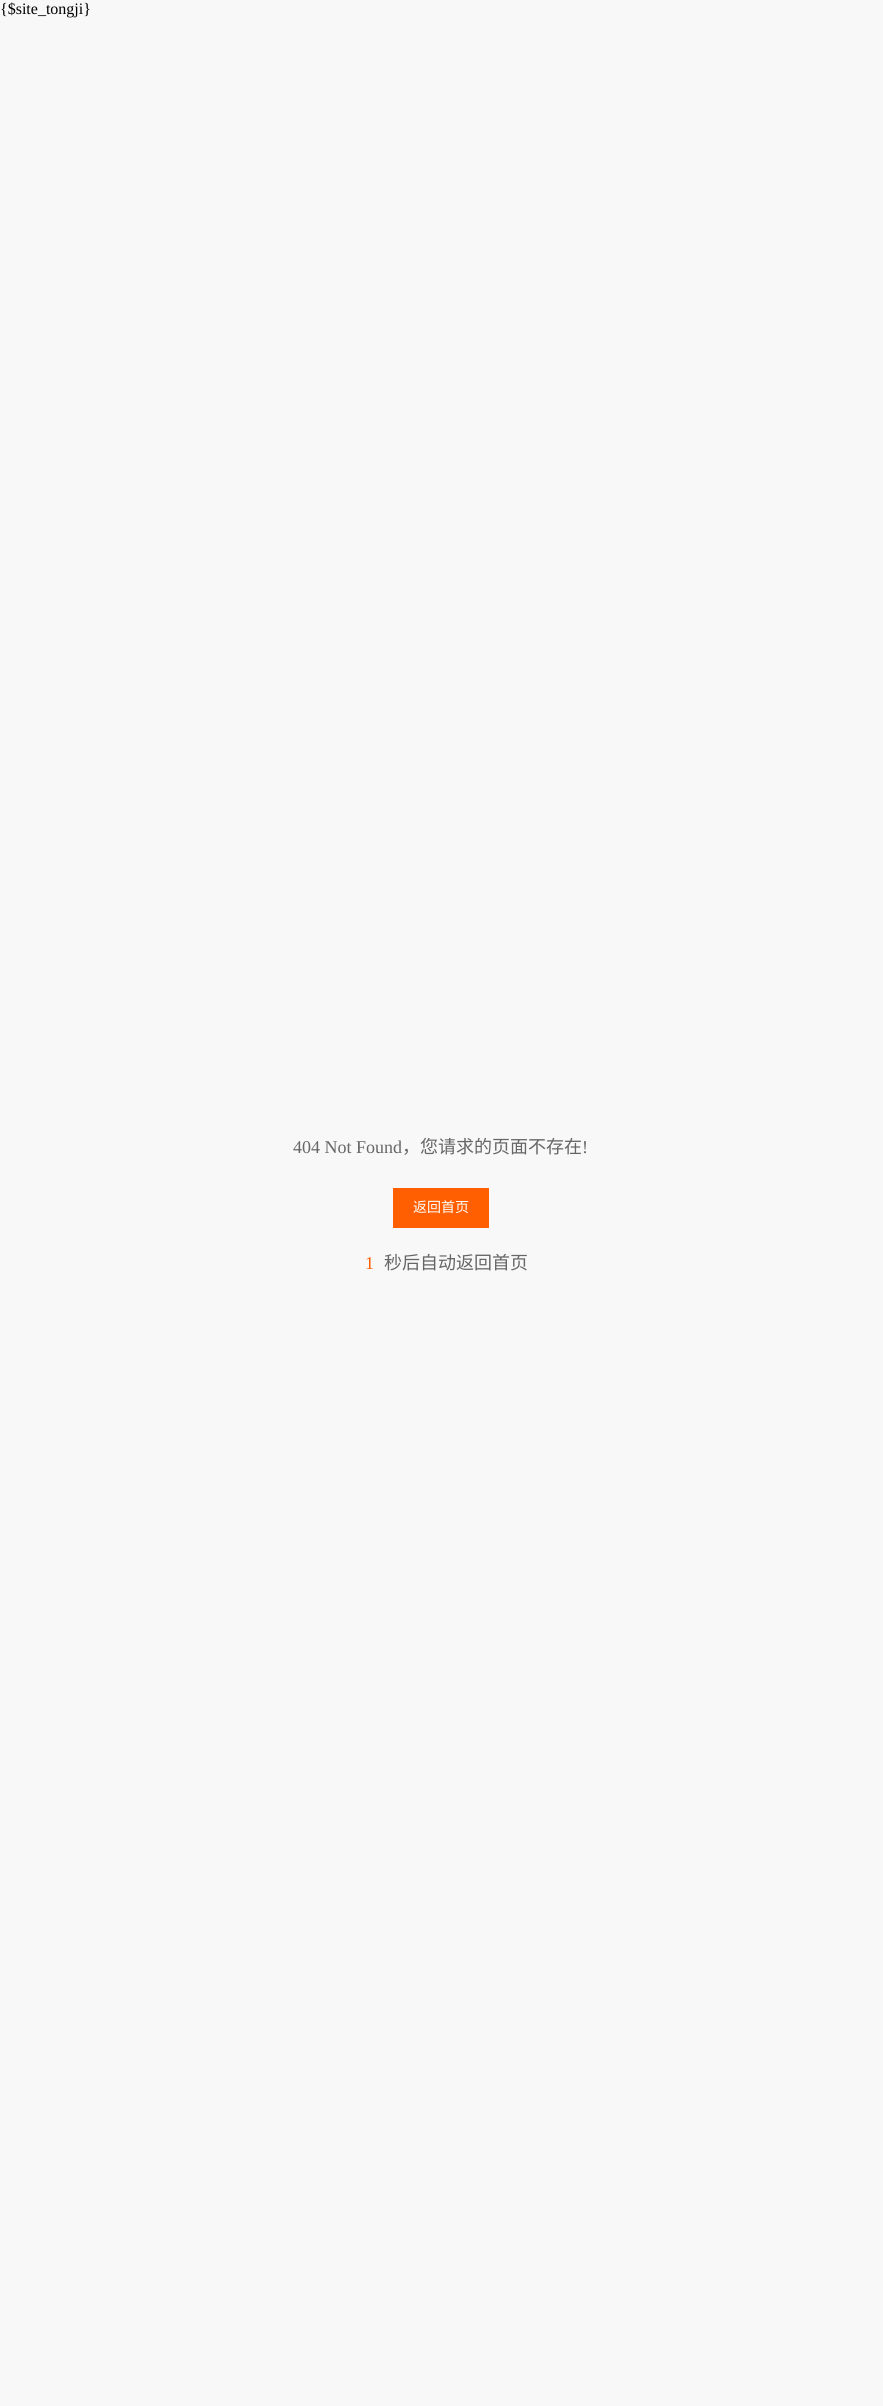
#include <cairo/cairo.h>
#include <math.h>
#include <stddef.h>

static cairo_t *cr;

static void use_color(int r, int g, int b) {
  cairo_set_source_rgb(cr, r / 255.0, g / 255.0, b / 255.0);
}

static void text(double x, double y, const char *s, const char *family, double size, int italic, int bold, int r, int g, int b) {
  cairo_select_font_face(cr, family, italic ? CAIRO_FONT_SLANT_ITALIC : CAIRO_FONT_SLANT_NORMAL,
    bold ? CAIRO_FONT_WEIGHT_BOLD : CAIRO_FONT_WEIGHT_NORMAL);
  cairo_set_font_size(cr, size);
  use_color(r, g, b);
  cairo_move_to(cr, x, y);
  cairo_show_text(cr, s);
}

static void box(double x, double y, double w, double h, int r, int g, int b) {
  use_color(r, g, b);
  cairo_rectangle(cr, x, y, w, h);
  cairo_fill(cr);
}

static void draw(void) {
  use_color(248, 248, 248);
  cairo_paint(cr);
  box(393, 1188, 96, 40, 255, 95, 0);
  text(0, 14, "{$site_tongji}", "Liberation Serif", 16, 0, 0, 0, 0, 0);
  text(293, 1153, "404 Not Found", "Liberation Serif", 18, 0, 0, 102, 102, 102);
  text(402, 1153, "，您请求的页面不存在", "Noto Sans CJK SC", 18, 0, 0, 102, 102, 102);
  text(582, 1153, "!", "Liberation Serif", 18, 0, 0, 102, 102, 102);
  text(413, 1212, "返回首页", "Noto Sans CJK SC", 14, 0, 0, 255, 255, 255);
  text(365, 1269, "1", "Liberation Serif", 18, 0, 0, 255, 95, 0);
  text(384, 1269, "秒后自动返回首页", "Noto Sans CJK SC", 18, 0, 0, 102, 102, 102);
}

int main(void) {
  cairo_surface_t *surface = cairo_image_surface_create(CAIRO_FORMAT_RGB24, 883, 2406);
  cr = cairo_create(surface);
  cairo_font_options_t *options = cairo_font_options_create();
  cairo_font_options_set_hint_metrics(options, CAIRO_HINT_METRICS_OFF);
  cairo_font_options_set_hint_style(options, CAIRO_HINT_STYLE_NONE);
  cairo_set_font_options(cr, options);
  cairo_set_miter_limit(cr, 4);
  draw();
  cairo_surface_write_to_png(surface, "out.png");
  cairo_font_options_destroy(options);
  cairo_destroy(cr);
  cairo_surface_destroy(surface);
  return 0;
}
